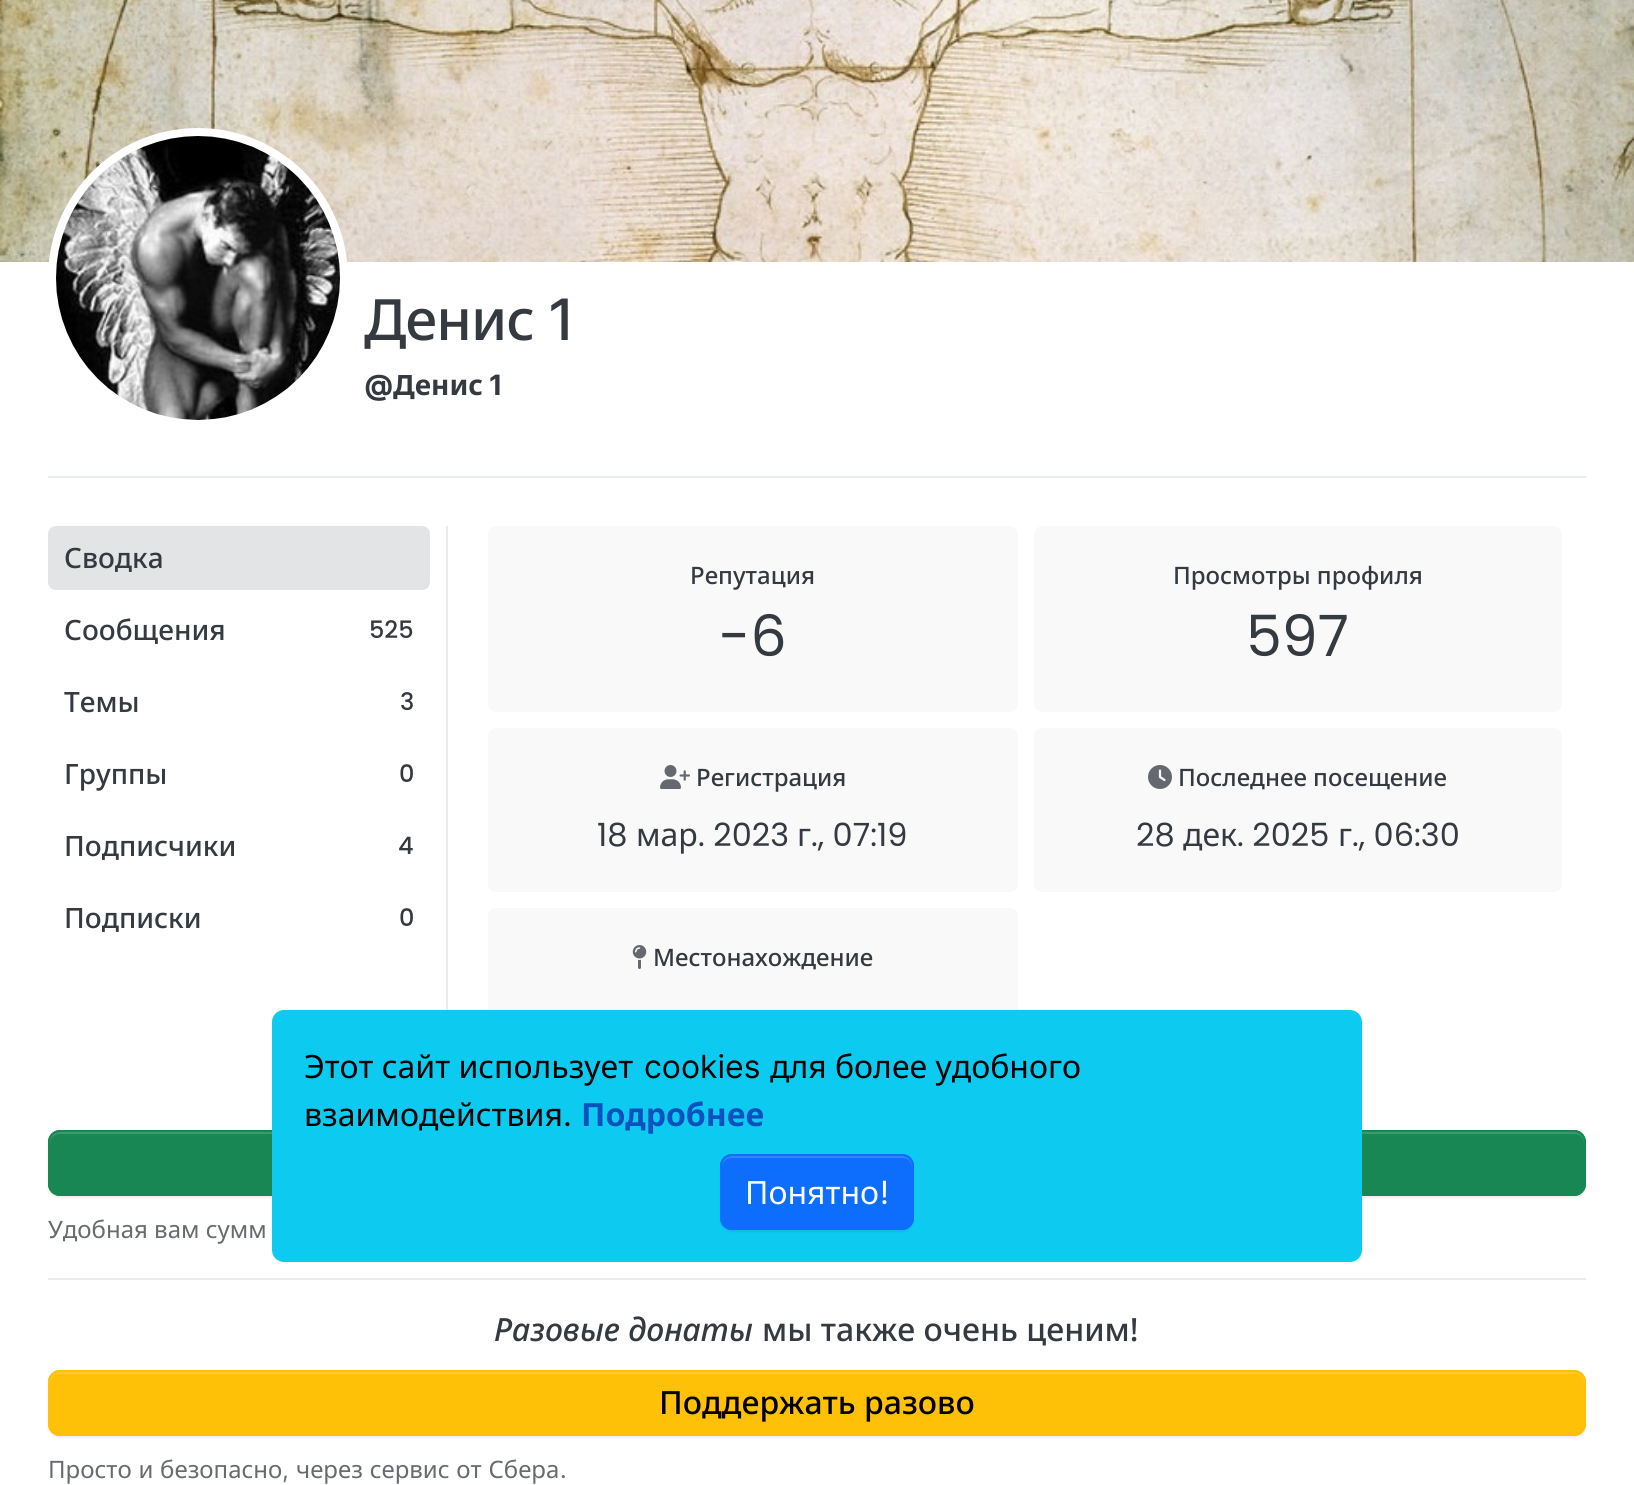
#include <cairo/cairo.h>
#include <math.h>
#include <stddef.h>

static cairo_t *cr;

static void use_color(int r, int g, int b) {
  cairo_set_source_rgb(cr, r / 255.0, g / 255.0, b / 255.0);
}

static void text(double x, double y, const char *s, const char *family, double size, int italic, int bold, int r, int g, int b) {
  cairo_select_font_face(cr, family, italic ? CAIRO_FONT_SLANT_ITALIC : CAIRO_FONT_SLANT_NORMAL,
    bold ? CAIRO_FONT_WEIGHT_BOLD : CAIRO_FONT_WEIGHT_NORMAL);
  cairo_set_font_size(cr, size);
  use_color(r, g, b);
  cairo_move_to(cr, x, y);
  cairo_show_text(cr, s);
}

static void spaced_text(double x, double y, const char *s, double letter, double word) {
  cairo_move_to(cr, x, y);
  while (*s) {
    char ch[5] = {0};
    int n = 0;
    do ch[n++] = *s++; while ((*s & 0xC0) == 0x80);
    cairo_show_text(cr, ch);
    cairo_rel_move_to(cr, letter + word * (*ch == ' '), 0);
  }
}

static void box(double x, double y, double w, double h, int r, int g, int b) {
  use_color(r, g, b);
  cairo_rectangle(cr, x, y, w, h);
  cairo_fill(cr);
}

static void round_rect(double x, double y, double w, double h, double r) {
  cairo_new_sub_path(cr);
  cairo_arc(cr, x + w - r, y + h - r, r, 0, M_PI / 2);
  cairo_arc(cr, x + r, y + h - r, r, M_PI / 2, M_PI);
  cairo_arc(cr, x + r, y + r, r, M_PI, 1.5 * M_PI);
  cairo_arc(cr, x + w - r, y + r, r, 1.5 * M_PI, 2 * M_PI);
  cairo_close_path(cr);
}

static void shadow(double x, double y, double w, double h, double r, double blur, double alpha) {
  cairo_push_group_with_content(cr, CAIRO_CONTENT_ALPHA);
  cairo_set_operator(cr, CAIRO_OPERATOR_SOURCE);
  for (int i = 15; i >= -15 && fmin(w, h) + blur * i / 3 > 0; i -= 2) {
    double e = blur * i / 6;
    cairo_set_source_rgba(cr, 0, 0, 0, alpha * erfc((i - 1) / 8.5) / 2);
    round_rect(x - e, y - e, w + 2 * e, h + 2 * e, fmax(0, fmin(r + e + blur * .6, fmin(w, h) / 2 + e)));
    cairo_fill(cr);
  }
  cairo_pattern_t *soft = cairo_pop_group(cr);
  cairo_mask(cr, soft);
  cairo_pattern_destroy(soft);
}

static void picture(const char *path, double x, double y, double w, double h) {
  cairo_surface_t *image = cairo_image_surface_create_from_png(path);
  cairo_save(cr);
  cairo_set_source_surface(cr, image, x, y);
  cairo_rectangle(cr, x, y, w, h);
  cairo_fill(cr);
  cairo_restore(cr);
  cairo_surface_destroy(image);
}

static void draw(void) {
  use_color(255, 255, 255);
  cairo_paint(cr);
  picture("img_01.png", 0, 0, 1634, 262);
  box(48, 476, 1538, 2, 233, 236, 239);
  cairo_arc(cr, 198, 278, 146, 0, 2 * M_PI);
  use_color(255, 255, 255);
  cairo_set_line_width(cr, 8);
  cairo_stroke(cr);
  picture("img_02.png", 56, 136, 284, 284);
  box(446, 526, 2, 484, 233, 236, 239);
  use_color(227, 228, 229);
  round_rect(48, 526, 382, 64, 8);
  cairo_fill(cr);
  use_color(249, 249, 250);
  round_rect(488, 526, 530, 186, 8);
  cairo_fill(cr);
  round_rect(1034, 526, 528, 186, 8);
  cairo_fill(cr);
  round_rect(488, 728, 530, 164, 8);
  cairo_fill(cr);
  picture("img_03.png", 660, 765, 30, 24);
  round_rect(1034, 728, 528, 164, 8);
  cairo_fill(cr);
  picture("img_04.png", 1148, 765, 24, 24);
  round_rect(488, 908, 530, 164, 8);
  cairo_fill(cr);
  picture("img_05.png", 632, 945, 15, 24);
  use_color(0, 0, 0);
  shadow(48, 1132, 1538, 66, 12, 1, 0.07);
  use_color(25, 135, 84);
  round_rect(48, 1130, 1538, 66, 12);
  cairo_fill(cr);
  use_color(60, 153, 110);
  cairo_new_path(cr);
  cairo_move_to(cr, 60, 1134);
  cairo_line_to(cr, 1574, 1134);
  cairo_curve_to(cr, 1580, 1134, 1584, 1138, 1584, 1144);
  cairo_line_to(cr, 1584, 1142);
  cairo_curve_to(cr, 1584, 1136, 1580, 1132, 1574, 1132);
  cairo_line_to(cr, 60, 1132);
  cairo_curve_to(cr, 54, 1132, 50, 1136, 50, 1142);
  cairo_line_to(cr, 50, 1144);
  cairo_curve_to(cr, 50, 1138, 54, 1134, 60, 1134);
  cairo_close_path(cr);
  cairo_fill(cr);
  round_rect(49, 1131, 1536, 64, 11);
  use_color(25, 135, 84);
  cairo_set_line_width(cr, 2);
  cairo_stroke(cr);
  box(48, 1278, 1538, 2, 233, 236, 239);
  use_color(0, 0, 0);
  shadow(48, 1372, 1538, 66, 12, 1, 0.07);
  use_color(255, 193, 7);
  round_rect(48, 1370, 1538, 66, 12);
  cairo_fill(cr);
  use_color(255, 202, 44);
  cairo_new_path(cr);
  cairo_move_to(cr, 60, 1374);
  cairo_line_to(cr, 1574, 1374);
  cairo_curve_to(cr, 1580, 1374, 1584, 1378, 1584, 1384);
  cairo_line_to(cr, 1584, 1382);
  cairo_curve_to(cr, 1584, 1376, 1580, 1372, 1574, 1372);
  cairo_line_to(cr, 60, 1372);
  cairo_curve_to(cr, 54, 1372, 50, 1376, 50, 1382);
  cairo_line_to(cr, 50, 1384);
  cairo_curve_to(cr, 50, 1378, 54, 1374, 60, 1374);
  cairo_close_path(cr);
  cairo_fill(cr);
  round_rect(49, 1371, 1536, 64, 11);
  use_color(255, 193, 7);
  cairo_stroke(cr);
  use_color(13, 202, 240);
  round_rect(272, 1010, 1090, 252, 12);
  cairo_fill(cr);
  use_color(0, 0, 0);
  shadow(720, 1156, 194, 76, 12, 1, 0.07);
  use_color(13, 110, 253);
  round_rect(720, 1154, 194, 76, 12);
  cairo_fill(cr);
  use_color(49, 132, 253);
  cairo_new_path(cr);
  cairo_move_to(cr, 732, 1158);
  cairo_line_to(cr, 902, 1158);
  cairo_curve_to(cr, 908, 1158, 912, 1162, 912, 1168);
  cairo_line_to(cr, 912, 1166);
  cairo_curve_to(cr, 912, 1160, 908, 1156, 902, 1156);
  cairo_line_to(cr, 732, 1156);
  cairo_curve_to(cr, 726, 1156, 722, 1160, 722, 1166);
  cairo_line_to(cr, 722, 1168);
  cairo_curve_to(cr, 722, 1162, 726, 1158, 732, 1158);
  cairo_close_path(cr);
  cairo_fill(cr);
  round_rect(721, 1155, 192, 74, 11);
  use_color(13, 110, 253);
  cairo_stroke(cr);
  cairo_select_font_face(cr, "Noto Sans Medium", CAIRO_FONT_SLANT_NORMAL, CAIRO_FONT_WEIGHT_NORMAL);
  cairo_set_font_size(cr, 57);
  use_color(52, 58, 64);
  spaced_text(364, 340, "Денис", -1, 0);
  cairo_select_font_face(cr, "Inter Medium", CAIRO_FONT_SLANT_NORMAL, CAIRO_FONT_WEIGHT_NORMAL);
  spaced_text(548, 340, "1", -1, 0);
  text(364, 395, "@", "Inter", 28, 0, 1, 52, 58, 64);
  text(393, 395, "Денис", "Noto Sans", 28, 0, 1, 52, 58, 64);
  text(489, 395, "1", "Inter", 28, 0, 1, 52, 58, 64);
  text(64, 568, "Сводка", "Noto Sans Medium", 28, 0, 0, 52, 58, 64);
  text(64, 640, "Сообщения", "Noto Sans Medium", 28, 0, 0, 52, 58, 64);
  text(369, 638, "525", "Poppins Medium", 24, 0, 0, 52, 58, 64);
  text(64, 712, "Темы", "Noto Sans Medium", 28, 0, 0, 52, 58, 64);
  text(400, 710, "3", "Poppins Medium", 24, 0, 0, 52, 58, 64);
  text(64, 784, "Группы", "Noto Sans Medium", 28, 0, 0, 52, 58, 64);
  text(399, 782, "0", "Poppins Medium", 24, 0, 0, 52, 58, 64);
  text(64, 856, "Подписчики", "Noto Sans Medium", 28, 0, 0, 52, 58, 64);
  text(398, 854, "4", "Poppins Medium", 24, 0, 0, 52, 58, 64);
  text(64, 928, "Подписки", "Noto Sans Medium", 28, 0, 0, 52, 58, 64);
  text(399, 926, "0", "Poppins Medium", 24, 0, 0, 52, 58, 64);
  text(690, 584, "Репутация", "Noto Sans Medium", 24, 0, 0, 52, 58, 64);
  text(719, 656, "-6", "Poppins", 57, 0, 0, 52, 58, 64);
  text(1173, 584, "Просмотры профиля", "Noto Sans Medium", 24, 0, 0, 52, 58, 64);
  text(1246, 656, "597", "Poppins", 57, 0, 0, 52, 58, 64);
  text(696, 786, "Регистрация", "Noto Sans Medium", 24, 0, 0, 52, 58, 64);
  text(597, 846, "18", "Poppins", 32, 0, 0, 52, 58, 64);
  text(636, 846, "мар", "Noto Sans", 32, 0, 0, 52, 58, 64);
  text(698, 846, ". 2023", "Poppins", 32, 0, 0, 52, 58, 64);
  text(797, 846, "г", "Noto Sans", 32, 0, 0, 52, 58, 64);
  text(811, 846, "., 07:19", "Poppins", 32, 0, 0, 52, 58, 64);
  text(1178, 786, "Последнее посещение", "Noto Sans Medium", 24, 0, 0, 52, 58, 64);
  text(1136, 846, "28", "Poppins", 32, 0, 0, 52, 58, 64);
  text(1183, 846, "дек", "Noto Sans", 32, 0, 0, 52, 58, 64);
  text(1237, 846, ". 2025", "Poppins", 32, 0, 0, 52, 58, 64);
  text(1338, 846, "г", "Noto Sans", 32, 0, 0, 52, 58, 64);
  text(1352, 846, "., 06:30", "Poppins", 32, 0, 0, 52, 58, 64);
  text(653, 966, "Местонахождение", "Noto Sans Medium", 24, 0, 0, 52, 58, 64);
  text(48, 1238, "Удобная вам сумм", "Noto Sans", 24, 0, 0, 103, 107, 112);
  text(494, 1341, "Разовые донаты", "Noto Sans Medium", 32, 1, 0, 52, 58, 64);
  text(762, 1341, "мы также очень ценим!", "Noto Sans Medium", 32, 0, 0, 52, 58, 64);
  text(659, 1414, "Поддержать разово", "Noto Sans Medium", 32, 0, 0, 0, 0, 0);
  cairo_select_font_face(cr, "Noto Sans", CAIRO_FONT_SLANT_NORMAL, CAIRO_FONT_WEIGHT_NORMAL);
  cairo_set_font_size(cr, 24);
  use_color(103, 107, 112);
  spaced_text(48, 1478, "Просто и безопасно", 0, 0.5);
  text(282, 1478, ",", "Inter", 24, 0, 0, 103, 107, 112);
  cairo_select_font_face(cr, "Noto Sans", CAIRO_FONT_SLANT_NORMAL, CAIRO_FONT_WEIGHT_NORMAL);
  spaced_text(296, 1478, "через сервис от Сбера", 0, 0.5);
  text(560, 1478, ".", "Inter", 24, 0, 0, 103, 107, 112);
  text(304, 1078, "Этот сайт использует", "Noto Sans", 32, 0, 0, 0, 0, 0);
  text(644, 1078, "cookies", "Inter", 32, 0, 0, 0, 0, 0);
  text(770, 1078, "для более удобного", "Noto Sans", 32, 0, 0, 0, 0, 0);
  text(304, 1126, "взаимодействия", "Noto Sans", 32, 0, 0, 0, 0, 0);
  text(563, 1126, ".", "Inter", 32, 0, 0, 0, 0, 0);
  text(581, 1126, "Подробнее", "Noto Sans", 32, 0, 1, 9, 81, 190);
  text(745, 1204, "Понятно", "Noto Sans", 32, 0, 0, 255, 255, 255);
  text(880, 1204, "!", "Inter", 32, 0, 0, 255, 255, 255);
}

int main(void) {
  cairo_surface_t *surface = cairo_image_surface_create(CAIRO_FORMAT_RGB24, 1634, 1485);
  cr = cairo_create(surface);
  cairo_font_options_t *options = cairo_font_options_create();
  cairo_font_options_set_hint_metrics(options, CAIRO_HINT_METRICS_OFF);
  cairo_font_options_set_hint_style(options, CAIRO_HINT_STYLE_NONE);
  cairo_set_font_options(cr, options);
  cairo_set_miter_limit(cr, 4);
  draw();
  cairo_surface_write_to_png(surface, "out.png");
  cairo_font_options_destroy(options);
  cairo_destroy(cr);
  cairo_surface_destroy(surface);
  return 0;
}
